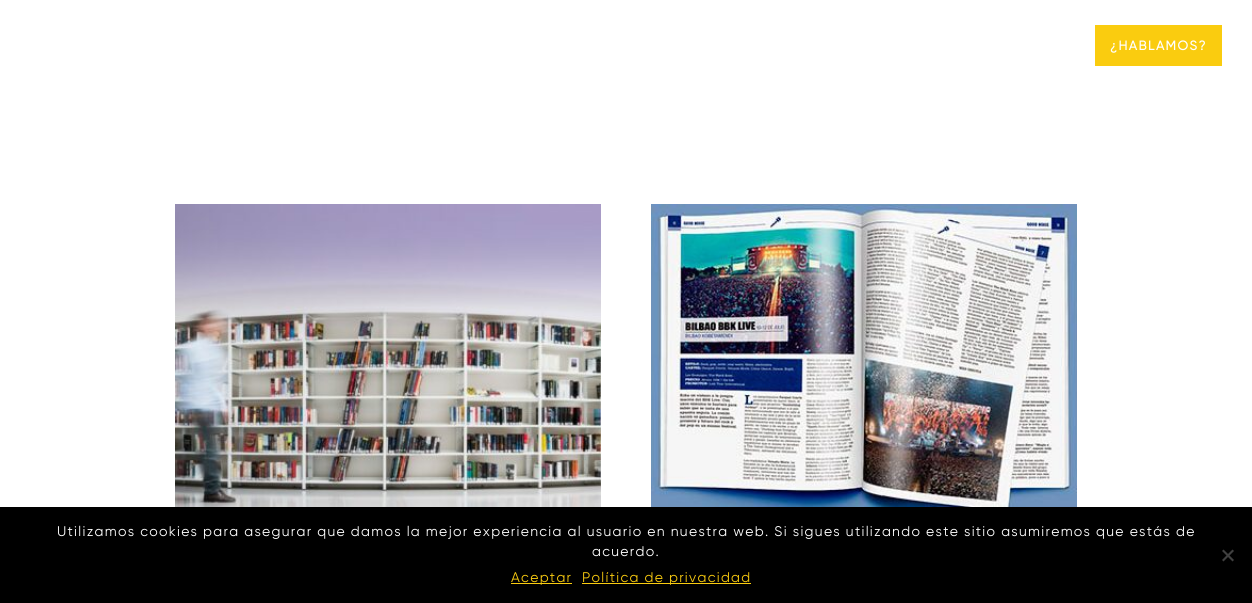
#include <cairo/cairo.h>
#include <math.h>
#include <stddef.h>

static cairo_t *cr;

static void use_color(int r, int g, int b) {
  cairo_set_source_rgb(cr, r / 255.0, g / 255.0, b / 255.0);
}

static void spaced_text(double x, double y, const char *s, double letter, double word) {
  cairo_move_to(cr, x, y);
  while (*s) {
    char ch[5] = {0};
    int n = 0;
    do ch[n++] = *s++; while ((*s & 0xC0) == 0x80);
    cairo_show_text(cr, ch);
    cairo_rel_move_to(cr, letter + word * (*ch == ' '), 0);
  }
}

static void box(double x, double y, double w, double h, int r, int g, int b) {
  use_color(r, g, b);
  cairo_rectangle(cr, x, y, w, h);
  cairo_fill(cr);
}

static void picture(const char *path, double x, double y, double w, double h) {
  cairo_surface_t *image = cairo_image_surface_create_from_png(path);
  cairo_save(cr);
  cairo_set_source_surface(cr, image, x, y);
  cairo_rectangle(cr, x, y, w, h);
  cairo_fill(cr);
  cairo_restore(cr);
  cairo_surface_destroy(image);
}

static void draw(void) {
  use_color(255, 255, 255);
  cairo_paint(cr);
  box(1095, 25, 127, 41, 250, 204, 15);
  picture("img_01.png", 175, 204, 426, 303);
  picture("img_02.png", 651, 204, 426, 303);
  box(0, 507, 1252, 96, 0, 0, 0);
  use_color(64, 64, 64);
  cairo_new_path(cr);
  cairo_move_to(cr, 1232.5, 549.5);
  cairo_line_to(cr, 1234, 551);
  cairo_line_to(cr, 1223.5, 561.5);
  cairo_line_to(cr, 1222, 560);
  cairo_close_path(cr);
  cairo_fill(cr);
  cairo_new_path(cr);
  cairo_move_to(cr, 1222, 551);
  cairo_line_to(cr, 1223.5, 549.5);
  cairo_line_to(cr, 1234, 560);
  cairo_line_to(cr, 1232.5, 561.5);
  cairo_close_path(cr);
  cairo_fill(cr);
  box(511, 583, 61, 1, 250, 204, 15);
  box(582, 583, 169, 1, 250, 204, 15);
  cairo_select_font_face(cr, "Gilroy", CAIRO_FONT_SLANT_NORMAL, CAIRO_FONT_WEIGHT_BOLD);
  cairo_set_font_size(cr, 13);
  use_color(255, 255, 255);
  spaced_text(1110, 50, "¿HABLAMOS?", 1.5, 0);
  cairo_select_font_face(cr, "Gilroy", CAIRO_FONT_SLANT_NORMAL, CAIRO_FONT_WEIGHT_NORMAL);
  cairo_set_font_size(cr, 14);
  spaced_text(57, 536, "Utilizamos cookies para asegurar que damos la mejor experiencia al usuario en nuestra web. Si sigues utilizando este sitio asumiremos que estás de", 1.3, 0);
  spaced_text(592, 556, "acuerdo.", 1.3, 0);
  use_color(250, 204, 15);
  spaced_text(511, 582, "Aceptar", 1.3, 0);
  spaced_text(582, 582, "Política de privacidad", 1.3, 0);
}

int main(void) {
  cairo_surface_t *surface = cairo_image_surface_create(CAIRO_FORMAT_RGB24, 1252, 603);
  cr = cairo_create(surface);
  cairo_font_options_t *options = cairo_font_options_create();
  cairo_font_options_set_hint_metrics(options, CAIRO_HINT_METRICS_OFF);
  cairo_font_options_set_hint_style(options, CAIRO_HINT_STYLE_NONE);
  cairo_set_font_options(cr, options);
  cairo_set_miter_limit(cr, 4);
  draw();
  cairo_surface_write_to_png(surface, "out.png");
  cairo_font_options_destroy(options);
  cairo_destroy(cr);
  cairo_surface_destroy(surface);
  return 0;
}
